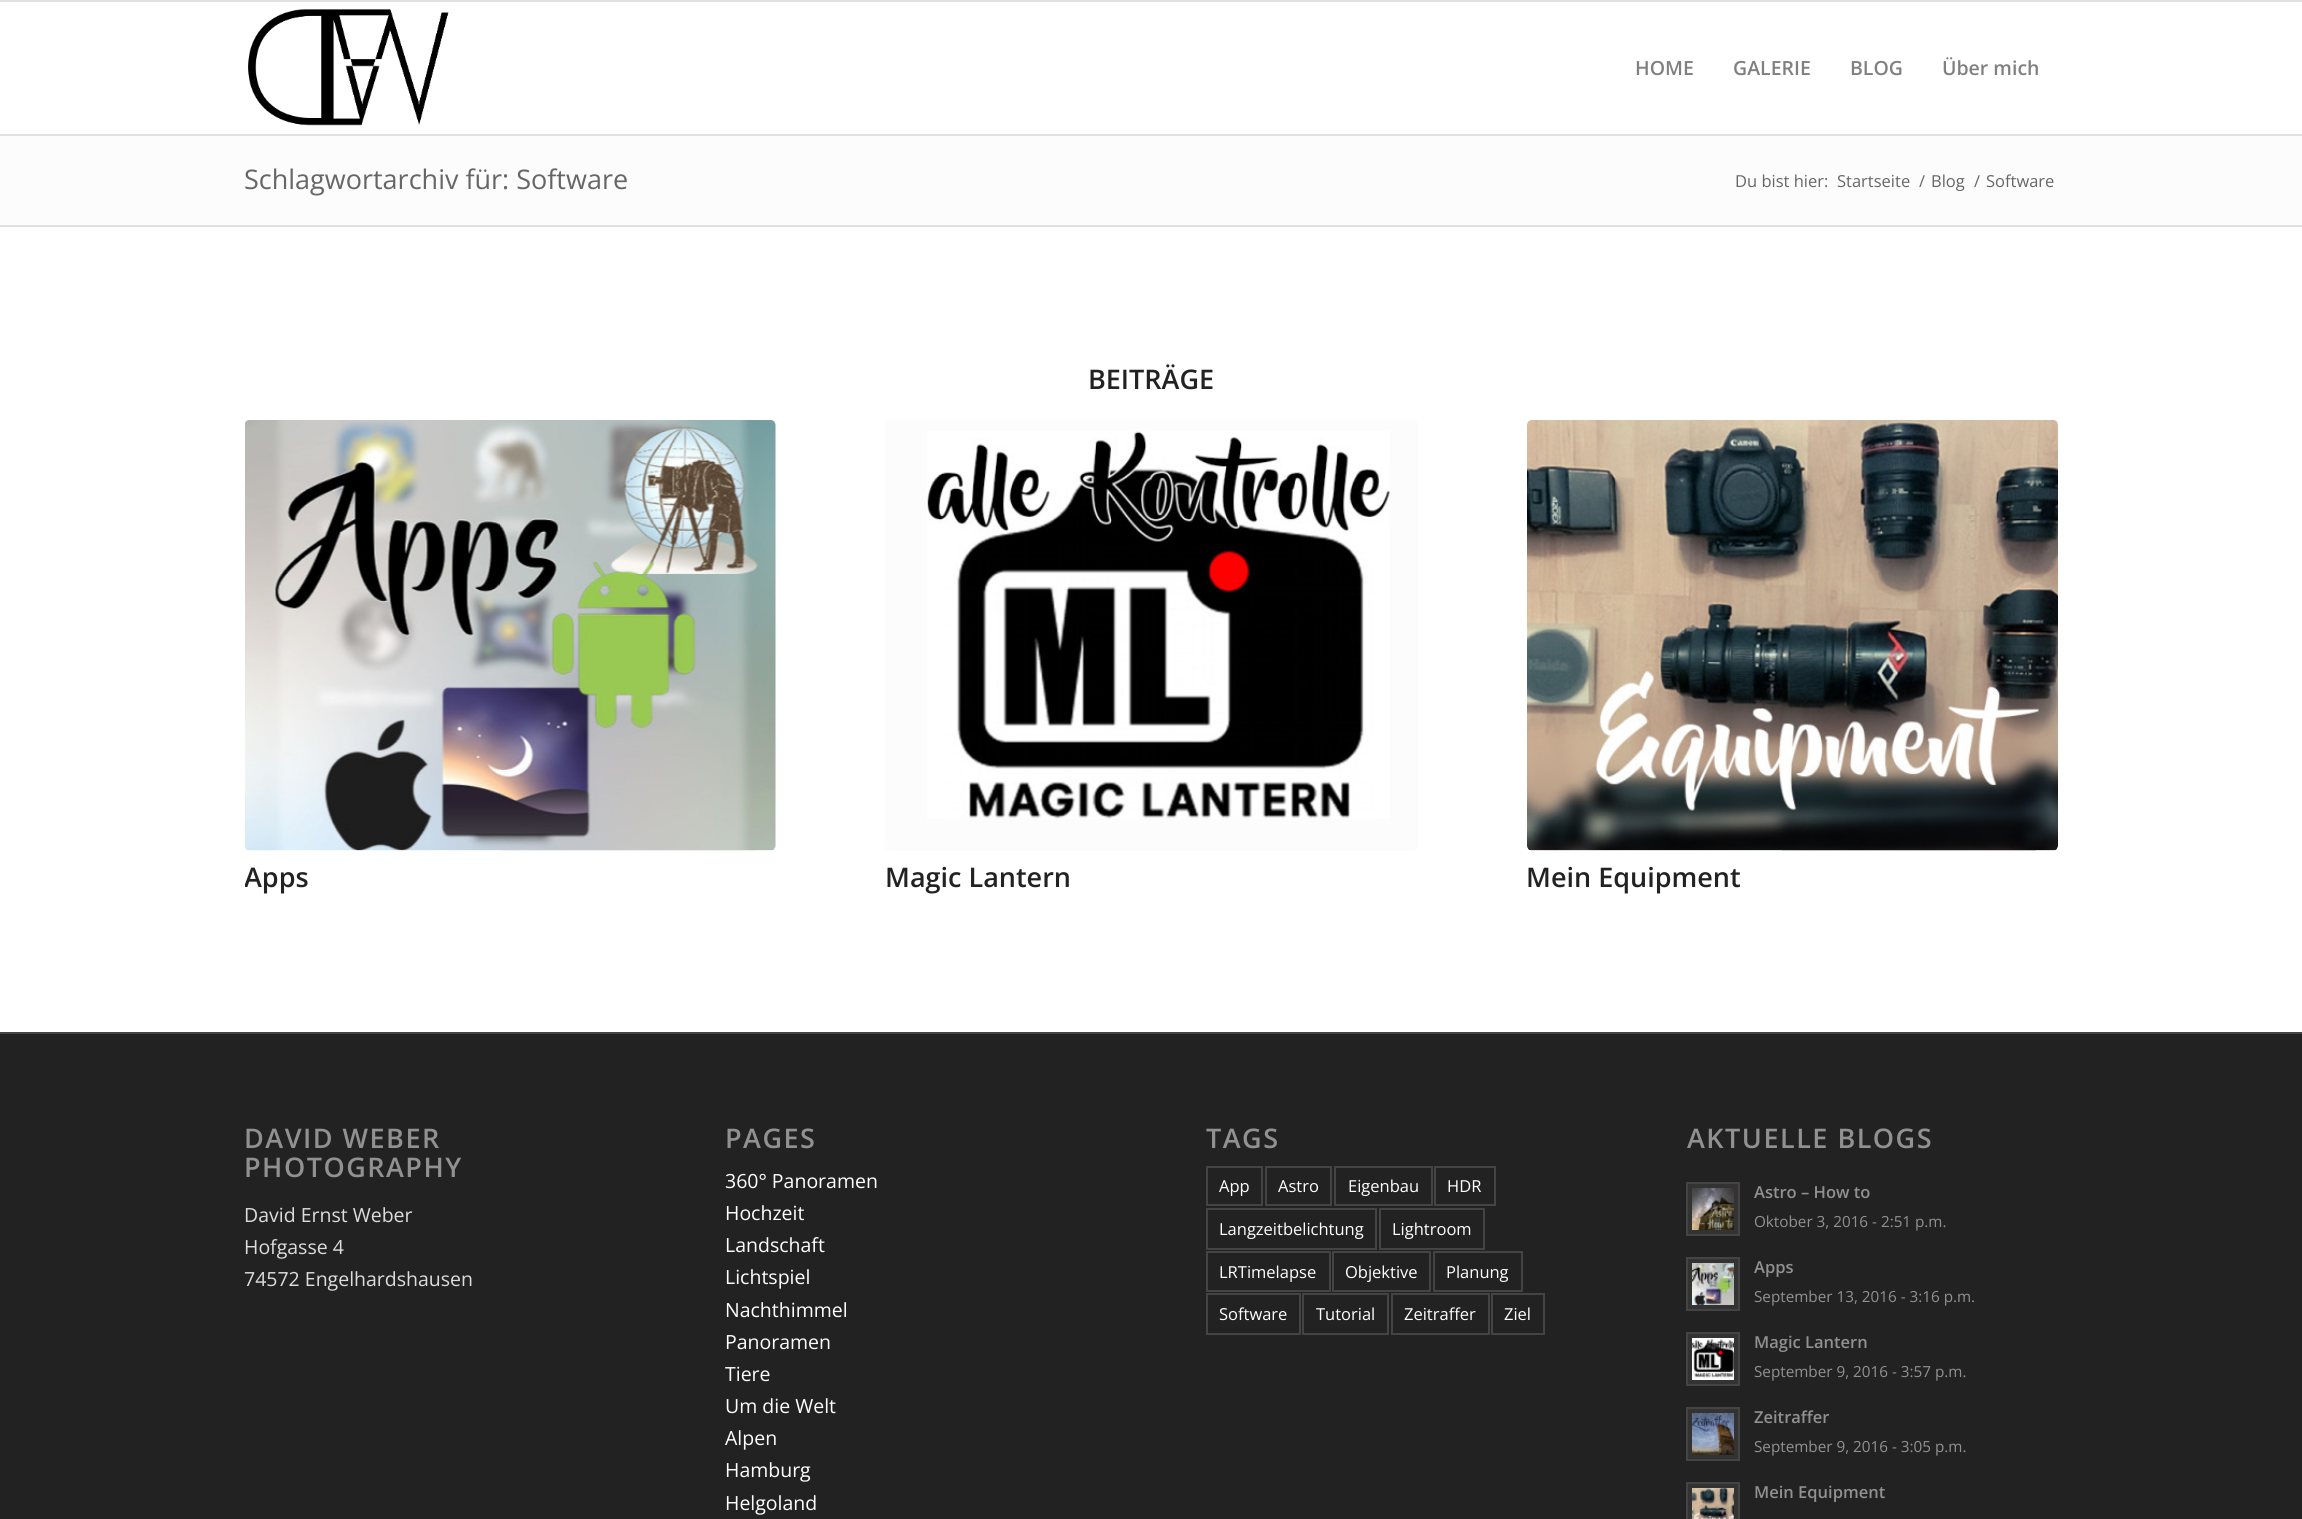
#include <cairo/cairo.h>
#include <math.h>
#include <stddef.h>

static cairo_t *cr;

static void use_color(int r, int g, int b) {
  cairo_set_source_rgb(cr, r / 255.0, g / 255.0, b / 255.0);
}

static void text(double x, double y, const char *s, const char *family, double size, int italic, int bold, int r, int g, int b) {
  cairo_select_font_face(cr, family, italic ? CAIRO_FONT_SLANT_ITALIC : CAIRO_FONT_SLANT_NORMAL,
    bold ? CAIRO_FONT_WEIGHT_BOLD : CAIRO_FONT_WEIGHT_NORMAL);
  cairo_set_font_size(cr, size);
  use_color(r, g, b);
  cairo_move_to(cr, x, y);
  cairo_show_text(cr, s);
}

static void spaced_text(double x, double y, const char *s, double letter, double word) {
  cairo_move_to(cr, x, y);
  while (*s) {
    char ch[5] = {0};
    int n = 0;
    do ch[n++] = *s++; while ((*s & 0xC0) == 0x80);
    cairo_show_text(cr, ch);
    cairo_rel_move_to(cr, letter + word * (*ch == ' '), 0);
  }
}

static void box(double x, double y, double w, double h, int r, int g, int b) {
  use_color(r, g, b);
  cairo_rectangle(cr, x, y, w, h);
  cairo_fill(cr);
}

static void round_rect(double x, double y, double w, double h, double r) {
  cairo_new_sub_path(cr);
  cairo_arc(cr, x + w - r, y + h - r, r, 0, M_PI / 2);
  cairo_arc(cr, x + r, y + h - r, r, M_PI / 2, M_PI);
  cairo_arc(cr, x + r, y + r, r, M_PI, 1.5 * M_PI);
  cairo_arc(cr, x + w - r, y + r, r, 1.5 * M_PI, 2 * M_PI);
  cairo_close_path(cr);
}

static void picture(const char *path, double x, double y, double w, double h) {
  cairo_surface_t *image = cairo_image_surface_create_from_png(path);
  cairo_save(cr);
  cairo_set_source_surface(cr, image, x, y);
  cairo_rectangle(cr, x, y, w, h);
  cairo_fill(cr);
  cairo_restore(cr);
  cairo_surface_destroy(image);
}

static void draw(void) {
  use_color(255, 255, 255);
  cairo_paint(cr);
  box(0, 0, 2302, 2, 225, 225, 225);
  box(0, 134, 2302, 2, 225, 225, 225);
  picture("img_01.png", 248, 9, 201, 117);
  box(0, 136, 2302, 89, 252, 252, 252);
  box(0, 225, 2302, 2, 225, 225, 225);
  use_color(252, 252, 252);
  round_rect(245, 420, 531, 431, 5);
  cairo_fill(cr);
  picture("img_02.png", 245, 420, 531, 431);
  round_rect(885, 420, 533, 431, 5);
  cairo_fill(cr);
  picture("img_03.png", 927, 431, 463, 388);
  round_rect(1527, 420, 531, 431, 5);
  cairo_fill(cr);
  picture("img_04.png", 1527, 420, 531, 431);
  box(0, 1034, 2302, 485, 34, 34, 34);
  box(0, 1032, 2302, 2, 68, 68, 68);
  cairo_rectangle(cr, 1207, 1167, 55, 38);
  cairo_stroke(cr);
  cairo_rectangle(cr, 1266, 1167, 65, 38);
  cairo_stroke(cr);
  cairo_rectangle(cr, 1335, 1167, 97, 38);
  cairo_stroke(cr);
  cairo_rectangle(cr, 1435, 1167, 60, 38);
  cairo_stroke(cr);
  cairo_rectangle(cr, 1207, 1209, 169, 40);
  cairo_stroke(cr);
  cairo_rectangle(cr, 1380, 1209, 104, 40);
  cairo_stroke(cr);
  cairo_rectangle(cr, 1207, 1252, 123, 39);
  cairo_stroke(cr);
  cairo_rectangle(cr, 1333, 1252, 97, 39);
  cairo_stroke(cr);
  cairo_rectangle(cr, 1434, 1252, 88, 39);
  cairo_stroke(cr);
  cairo_rectangle(cr, 1207, 1294, 93, 40);
  cairo_stroke(cr);
  cairo_rectangle(cr, 1303, 1294, 85, 40);
  cairo_stroke(cr);
  cairo_rectangle(cr, 1392, 1294, 97, 40);
  cairo_stroke(cr);
  cairo_rectangle(cr, 1492, 1294, 52, 40);
  cairo_stroke(cr);
  use_color(51, 51, 51);
  cairo_rectangle(cr, 1687, 1183, 52, 52);
  cairo_fill_preserve(cr);
  use_color(68, 68, 68);
  cairo_stroke(cr);
  picture("img_05.png", 1692, 1188, 42, 42);
  use_color(51, 51, 51);
  cairo_rectangle(cr, 1687, 1258, 52, 52);
  cairo_fill_preserve(cr);
  use_color(68, 68, 68);
  cairo_stroke(cr);
  picture("img_06.png", 1692, 1263, 42, 42);
  use_color(51, 51, 51);
  cairo_rectangle(cr, 1687, 1333, 52, 52);
  cairo_fill_preserve(cr);
  use_color(68, 68, 68);
  cairo_stroke(cr);
  picture("img_07.png", 1692, 1338, 42, 42);
  use_color(51, 51, 51);
  cairo_rectangle(cr, 1687, 1408, 52, 52);
  cairo_fill_preserve(cr);
  use_color(68, 68, 68);
  cairo_stroke(cr);
  picture("img_08.png", 1692, 1413, 42, 42);
  use_color(51, 51, 51);
  cairo_rectangle(cr, 1687, 1483, 52, 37);
  cairo_fill_preserve(cr);
  use_color(68, 68, 68);
  cairo_stroke(cr);
  picture("img_09.png", 1692, 1488, 42, 31);
  text(1635, 75, "HOME", "Open Sans SemiBold", 19.5, 0, 0, 128, 128, 128);
  text(1733, 75, "GALERIE", "Open Sans SemiBold", 19.5, 0, 0, 128, 128, 128);
  text(1850, 75, "BLOG", "Open Sans SemiBold", 19.5, 0, 0, 128, 128, 128);
  text(1942, 75, "Über mich", "Open Sans SemiBold", 19.5, 0, 0, 128, 128, 128);
  text(244, 189, "Schlagwortarchiv für: Software", "Open Sans", 27, 0, 0, 102, 102, 102);
  text(1735, 187, "Du bist hier:", "Open Sans", 16.5, 0, 0, 102, 102, 102);
  text(1837, 187, "Startseite", "Open Sans", 16.5, 0, 0, 102, 102, 102);
  text(1919, 187, "/", "Open Sans", 16.5, 0, 0, 102, 102, 102);
  text(1931, 187, "Blog", "Open Sans", 16.5, 0, 0, 102, 102, 102);
  text(1974, 187, "/", "Open Sans", 16.5, 0, 0, 102, 102, 102);
  text(1986, 187, "Software", "Open Sans", 16.5, 0, 0, 102, 102, 102);
  text(1088, 389, "BEITRÄGE", "Open Sans SemiBold", 27, 0, 0, 34, 34, 34);
  cairo_save(cr);
  cairo_rectangle(cr, 245, 420, 1815, 537);
  cairo_clip(cr);
  text(244, 887, "Apps", "Open Sans SemiBold", 27, 0, 0, 34, 34, 34);
  cairo_restore(cr);
  text(885, 887, "Magic Lantern", "Open Sans SemiBold", 27, 0, 0, 34, 34, 34);
  text(1526, 887, "Mein Equipment", "Open Sans SemiBold", 27, 0, 0, 34, 34, 34);
  use_color(145, 145, 145);
  spaced_text(244, 1148, "DAVID WEBER", 1.5, 0);
  spaced_text(244, 1177, "PHOTOGRAPHY", 1.5, 0);
  text(244, 1222, "David Ernst Weber", "Open Sans", 19.5, 0, 0, 221, 221, 221);
  text(244, 1254, "Hofgasse 4", "Open Sans", 19.5, 0, 0, 221, 221, 221);
  text(244, 1286, "74572 Engelhardshausen", "Open Sans", 19.5, 0, 0, 221, 221, 221);
  cairo_select_font_face(cr, "Open Sans SemiBold", CAIRO_FONT_SLANT_NORMAL, CAIRO_FONT_WEIGHT_NORMAL);
  cairo_set_font_size(cr, 27);
  use_color(145, 145, 145);
  spaced_text(725, 1148, "PAGES", 1.5, 0);
  text(725, 1188, "360° Panoramen", "Open Sans", 19.5, 0, 0, 255, 255, 255);
  text(725, 1220, "Hochzeit", "Open Sans", 19.5, 0, 0, 255, 255, 255);
  text(725, 1252, "Landschaft", "Open Sans", 19.5, 0, 0, 255, 255, 255);
  text(725, 1284, "Lichtspiel", "Open Sans", 19.5, 0, 0, 255, 255, 255);
  text(725, 1317, "Nachthimmel", "Open Sans", 19.5, 0, 0, 255, 255, 255);
  text(725, 1349, "Panoramen", "Open Sans", 19.5, 0, 0, 255, 255, 255);
  text(725, 1381, "Tiere", "Open Sans", 19.5, 0, 0, 255, 255, 255);
  text(725, 1413, "Um die Welt", "Open Sans", 19.5, 0, 0, 255, 255, 255);
  text(725, 1445, "Alpen", "Open Sans", 19.5, 0, 0, 255, 255, 255);
  text(725, 1477, "Hamburg", "Open Sans", 19.5, 0, 0, 255, 255, 255);
  text(725, 1510, "Helgoland", "Open Sans", 19.5, 0, 0, 255, 255, 255);
  cairo_select_font_face(cr, "Open Sans SemiBold", CAIRO_FONT_SLANT_NORMAL, CAIRO_FONT_WEIGHT_NORMAL);
  cairo_set_font_size(cr, 27);
  use_color(145, 145, 145);
  spaced_text(1206, 1148, "TAGS", 1.5, 0);
  text(1219, 1192, "App", "Open Sans", 16.5, 0, 0, 255, 255, 255);
  text(1278, 1192, "Astro", "Open Sans", 16.5, 0, 0, 255, 255, 255);
  text(1348, 1192, "Eigenbau", "Open Sans", 16.5, 0, 0, 255, 255, 255);
  text(1447, 1192, "HDR", "Open Sans", 16.5, 0, 0, 255, 255, 255);
  text(1219, 1235, "Langzeitbelichtung", "Open Sans", 16.5, 0, 0, 255, 255, 255);
  text(1392, 1235, "Lightroom", "Open Sans", 16.5, 0, 0, 255, 255, 255);
  text(1219, 1278, "LRTimelapse", "Open Sans", 16.5, 0, 0, 255, 255, 255);
  text(1345, 1278, "Objektive", "Open Sans", 16.5, 0, 0, 255, 255, 255);
  text(1446, 1278, "Planung", "Open Sans", 16.5, 0, 0, 255, 255, 255);
  text(1219, 1320, "Software", "Open Sans", 16.5, 0, 0, 255, 255, 255);
  text(1316, 1320, "Tutorial", "Open Sans", 16.5, 0, 0, 255, 255, 255);
  text(1404, 1320, "Zeitraffer", "Open Sans", 16.5, 0, 0, 255, 255, 255);
  text(1504, 1320, "Ziel", "Open Sans", 16.5, 0, 0, 255, 255, 255);
  cairo_select_font_face(cr, "Open Sans SemiBold", CAIRO_FONT_SLANT_NORMAL, CAIRO_FONT_WEIGHT_NORMAL);
  cairo_set_font_size(cr, 27);
  use_color(145, 145, 145);
  spaced_text(1687, 1148, "AKTUELLE BLOGS", 1.5, 0);
  text(1754, 1198, "Astro – How to", "Open Sans SemiBold", 16.5, 0, 0, 145, 145, 145);
  text(1754, 1227, "Oktober 3, 2016 - 2:51 p.m.", "Open Sans", 15.25, 0, 0, 145, 145, 145);
  text(1754, 1273, "Apps", "Open Sans SemiBold", 16.5, 0, 0, 145, 145, 145);
  text(1754, 1302, "September 13, 2016 - 3:16 p.m.", "Open Sans", 15.25, 0, 0, 145, 145, 145);
  text(1754, 1348, "Magic Lantern", "Open Sans SemiBold", 16.5, 0, 0, 145, 145, 145);
  text(1754, 1377, "September 9, 2016 - 3:57 p.m.", "Open Sans", 15.25, 0, 0, 145, 145, 145);
  text(1754, 1423, "Zeitraffer", "Open Sans SemiBold", 16.5, 0, 0, 145, 145, 145);
  text(1754, 1452, "September 9, 2016 - 3:05 p.m.", "Open Sans", 15.25, 0, 0, 145, 145, 145);
  text(1754, 1498, "Mein Equipment", "Open Sans SemiBold", 16.5, 0, 0, 145, 145, 145);
}

int main(void) {
  cairo_surface_t *surface = cairo_image_surface_create(CAIRO_FORMAT_RGB24, 2302, 1519);
  cr = cairo_create(surface);
  cairo_font_options_t *options = cairo_font_options_create();
  cairo_font_options_set_hint_metrics(options, CAIRO_HINT_METRICS_OFF);
  cairo_font_options_set_hint_style(options, CAIRO_HINT_STYLE_NONE);
  cairo_set_font_options(cr, options);
  cairo_set_miter_limit(cr, 4);
  draw();
  cairo_surface_write_to_png(surface, "out.png");
  cairo_font_options_destroy(options);
  cairo_destroy(cr);
  cairo_surface_destroy(surface);
  return 0;
}
